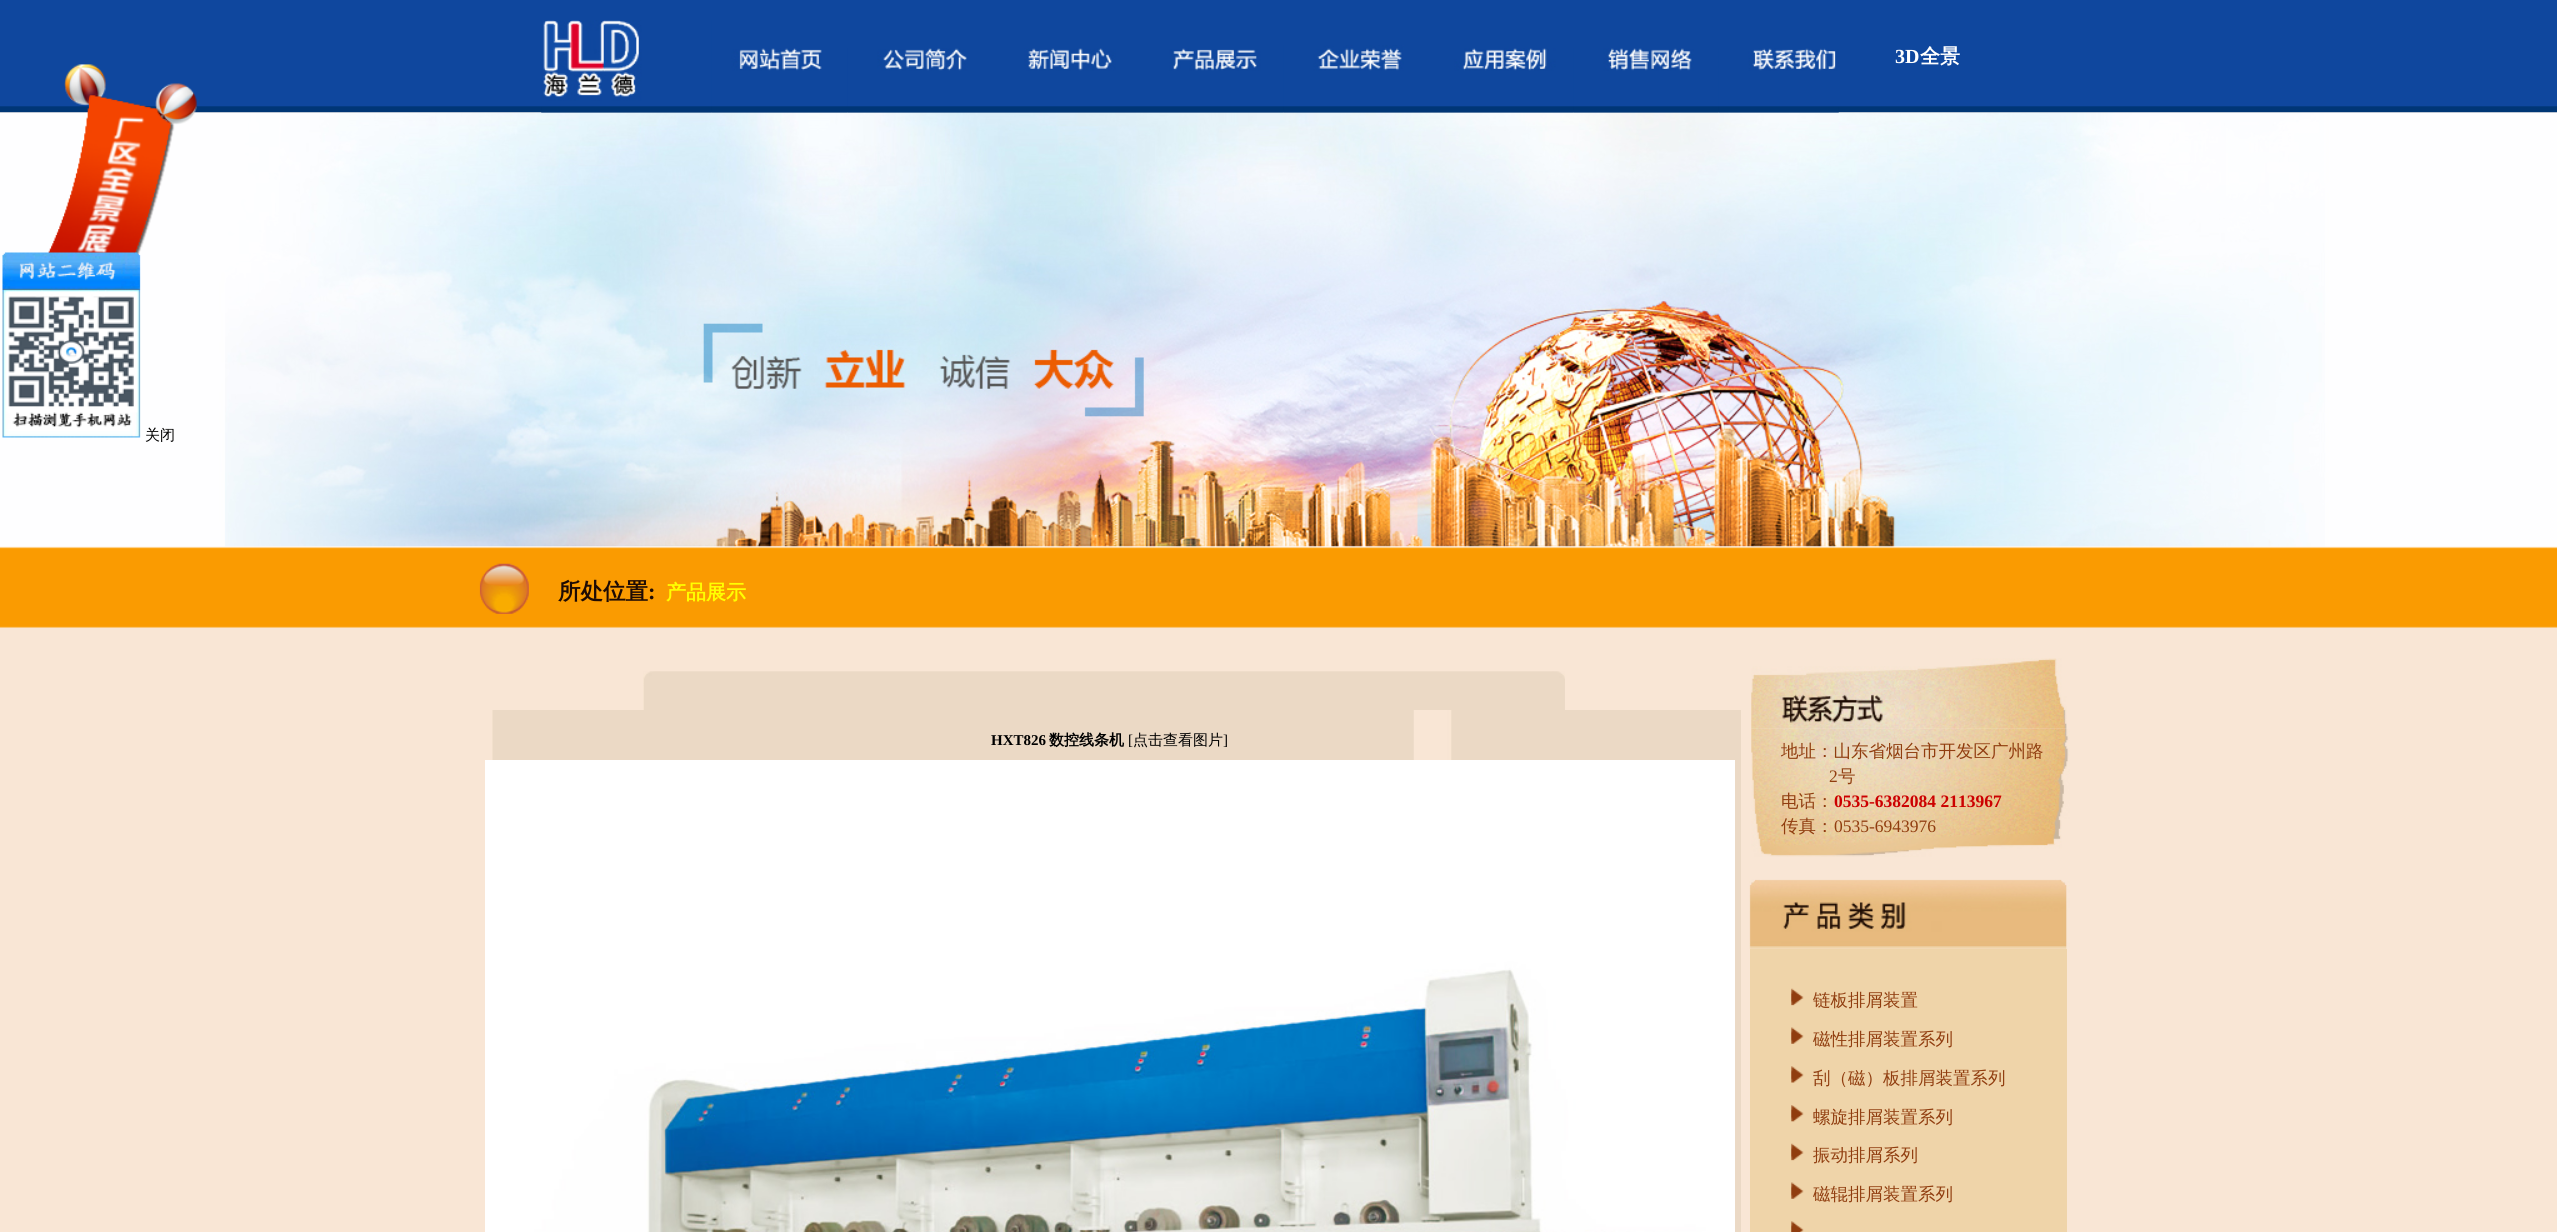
#include <cairo/cairo.h>
#include <math.h>
#include <stddef.h>

static cairo_t *cr;

static void use_color(int r, int g, int b) {
  cairo_set_source_rgb(cr, r / 255.0, g / 255.0, b / 255.0);
}

static void text(double x, double y, const char *s, const char *family, double size, int italic, int bold, int r, int g, int b) {
  cairo_select_font_face(cr, family, italic ? CAIRO_FONT_SLANT_ITALIC : CAIRO_FONT_SLANT_NORMAL,
    bold ? CAIRO_FONT_WEIGHT_BOLD : CAIRO_FONT_WEIGHT_NORMAL);
  cairo_set_font_size(cr, size);
  use_color(r, g, b);
  cairo_move_to(cr, x, y);
  cairo_show_text(cr, s);
}

static void box(double x, double y, double w, double h, int r, int g, int b) {
  use_color(r, g, b);
  cairo_rectangle(cr, x, y, w, h);
  cairo_fill(cr);
}

static void picture(const char *path, double x, double y, double w, double h) {
  cairo_surface_t *image = cairo_image_surface_create_from_png(path);
  cairo_save(cr);
  cairo_set_source_surface(cr, image, x, y);
  cairo_rectangle(cr, x, y, w, h);
  cairo_fill(cr);
  cairo_restore(cr);
  cairo_surface_destroy(image);
}

static void draw(void) {
  use_color(249, 230, 213);
  cairo_paint(cr);
  picture("img_01.png", 0, 0, 2557, 628);
  picture("img_12.png", 0, 112, 2557, 435);
  picture("img_02.png", 541, 20, 171, 93);
  picture("img_03.png", 711, 48, 137, 65);
  picture("img_04.png", 847, 48, 148, 65);
  picture("img_05.png", 995, 48, 145, 65);
  picture("img_06.png", 1140, 48, 144, 65);
  picture("img_07.png", 1283, 45, 152, 68);
  picture("img_08.png", 1435, 48, 139, 65);
  picture("img_09.png", 1573, 48, 146, 65);
  picture("img_10.png", 1718, 48, 121, 65);
  picture("img_11.png", 48, 64, 149, 192);
  picture("img_13.png", 2, 252, 139, 186);
  picture("img_14.png", 479, 563, 50, 51);
  picture("img_15.png", 643, 671, 922, 39);
  picture("img_16.png", 492, 710, 1249, 522);
  picture("img_17.png", 485, 760, 1250, 472);
  picture("img_19.png", 1751, 728, 319, 129);
  picture("img_18.png", 1751, 658, 316, 71);
  picture("img_20.png", 1749, 879, 321, 70);
  box(1750, 949, 317, 283, 239, 212, 169);
  picture("img_21.png", 1791, 988, 13, 18);
  picture("img_22.png", 1791, 1027, 13, 17);
  picture("img_23.png", 1791, 1066, 13, 17);
  picture("img_24.png", 1791, 1105, 13, 17);
  picture("img_21.png", 1791, 1143, 13, 18);
  picture("img_22.png", 1791, 1182, 13, 17);
  picture("img_25.png", 1791, 1221, 13, 11);
  text(1895, 63, "3D", "Liberation Serif", 20, 0, 1, 255, 255, 255);
  text(1920, 63, "全景", "WenQuanYi Zen Hei", 20, 0, 1, 255, 255, 255);
  text(145, 440, "关闭", "WenQuanYi Zen Hei Medium", 15, 0, 0, 0, 0, 0);
  text(558, 599, "所处位置", "WenQuanYi Zen Hei", 22.5, 0, 1, 30, 11, 4);
  text(648, 599, ":", "Liberation Serif", 22.5, 0, 1, 30, 11, 4);
  text(666, 599, "产品展示", "WenQuanYi Zen Hei", 20, 0, 1, 255, 255, 0);
  text(991, 745, "HXT826", "Liberation Serif", 15, 0, 1, 0, 0, 0);
  text(1049, 745, "数控线条机", "WenQuanYi Zen Hei", 15, 0, 1, 0, 0, 0);
  text(1128, 745, "[", "Liberation Serif", 15, 0, 0, 0, 0, 0);
  text(1133, 745, "点击查看图片", "WenQuanYi Zen Hei Medium", 15, 0, 0, 0, 0, 0);
  text(1223, 745, "]", "Liberation Serif", 15, 0, 0, 0, 0, 0);
  text(1781, 757, "地址：山东省烟台市开发区广州路", "WenQuanYi Zen Hei Medium", 17.5, 0, 0, 144, 61, 15);
  text(1829, 782, "2", "Liberation Serif", 17.5, 0, 0, 144, 61, 15);
  text(1838, 782, "号", "WenQuanYi Zen Hei Medium", 17.5, 0, 0, 144, 61, 15);
  text(1781, 807, "电话：", "WenQuanYi Zen Hei Medium", 17.5, 0, 0, 144, 61, 15);
  text(1834, 807, "0535-6382084 2113967", "Liberation Serif", 17.5, 0, 1, 204, 0, 0);
  text(1781, 832, "传真：", "WenQuanYi Zen Hei Medium", 17.5, 0, 0, 144, 61, 15);
  text(1834, 832, "0535-6943976", "Liberation Serif", 17.5, 0, 0, 144, 61, 15);
  text(1813, 1006, "链板排屑装置", "WenQuanYi Zen Hei Medium", 17.5, 0, 0, 144, 61, 15);
  text(1813, 1045, "磁性排屑装置系列", "WenQuanYi Zen Hei Medium", 17.5, 0, 0, 144, 61, 15);
  text(1813, 1084, "刮（磁）板排屑装置系列", "WenQuanYi Zen Hei Medium", 17.5, 0, 0, 144, 61, 15);
  text(1813, 1123, "螺旋排屑装置系列", "WenQuanYi Zen Hei Medium", 17.5, 0, 0, 144, 61, 15);
  text(1813, 1161, "振动排屑系列", "WenQuanYi Zen Hei Medium", 17.5, 0, 0, 144, 61, 15);
  text(1813, 1200, "磁辊排屑装置系列", "WenQuanYi Zen Hei Medium", 17.5, 0, 0, 144, 61, 15);
}

int main(void) {
  cairo_surface_t *surface = cairo_image_surface_create(CAIRO_FORMAT_RGB24, 2557, 1232);
  cr = cairo_create(surface);
  cairo_font_options_t *options = cairo_font_options_create();
  cairo_font_options_set_hint_metrics(options, CAIRO_HINT_METRICS_OFF);
  cairo_font_options_set_hint_style(options, CAIRO_HINT_STYLE_NONE);
  cairo_set_font_options(cr, options);
  cairo_set_miter_limit(cr, 4);
  draw();
  cairo_surface_write_to_png(surface, "out.png");
  cairo_font_options_destroy(options);
  cairo_destroy(cr);
  cairo_surface_destroy(surface);
  return 0;
}
